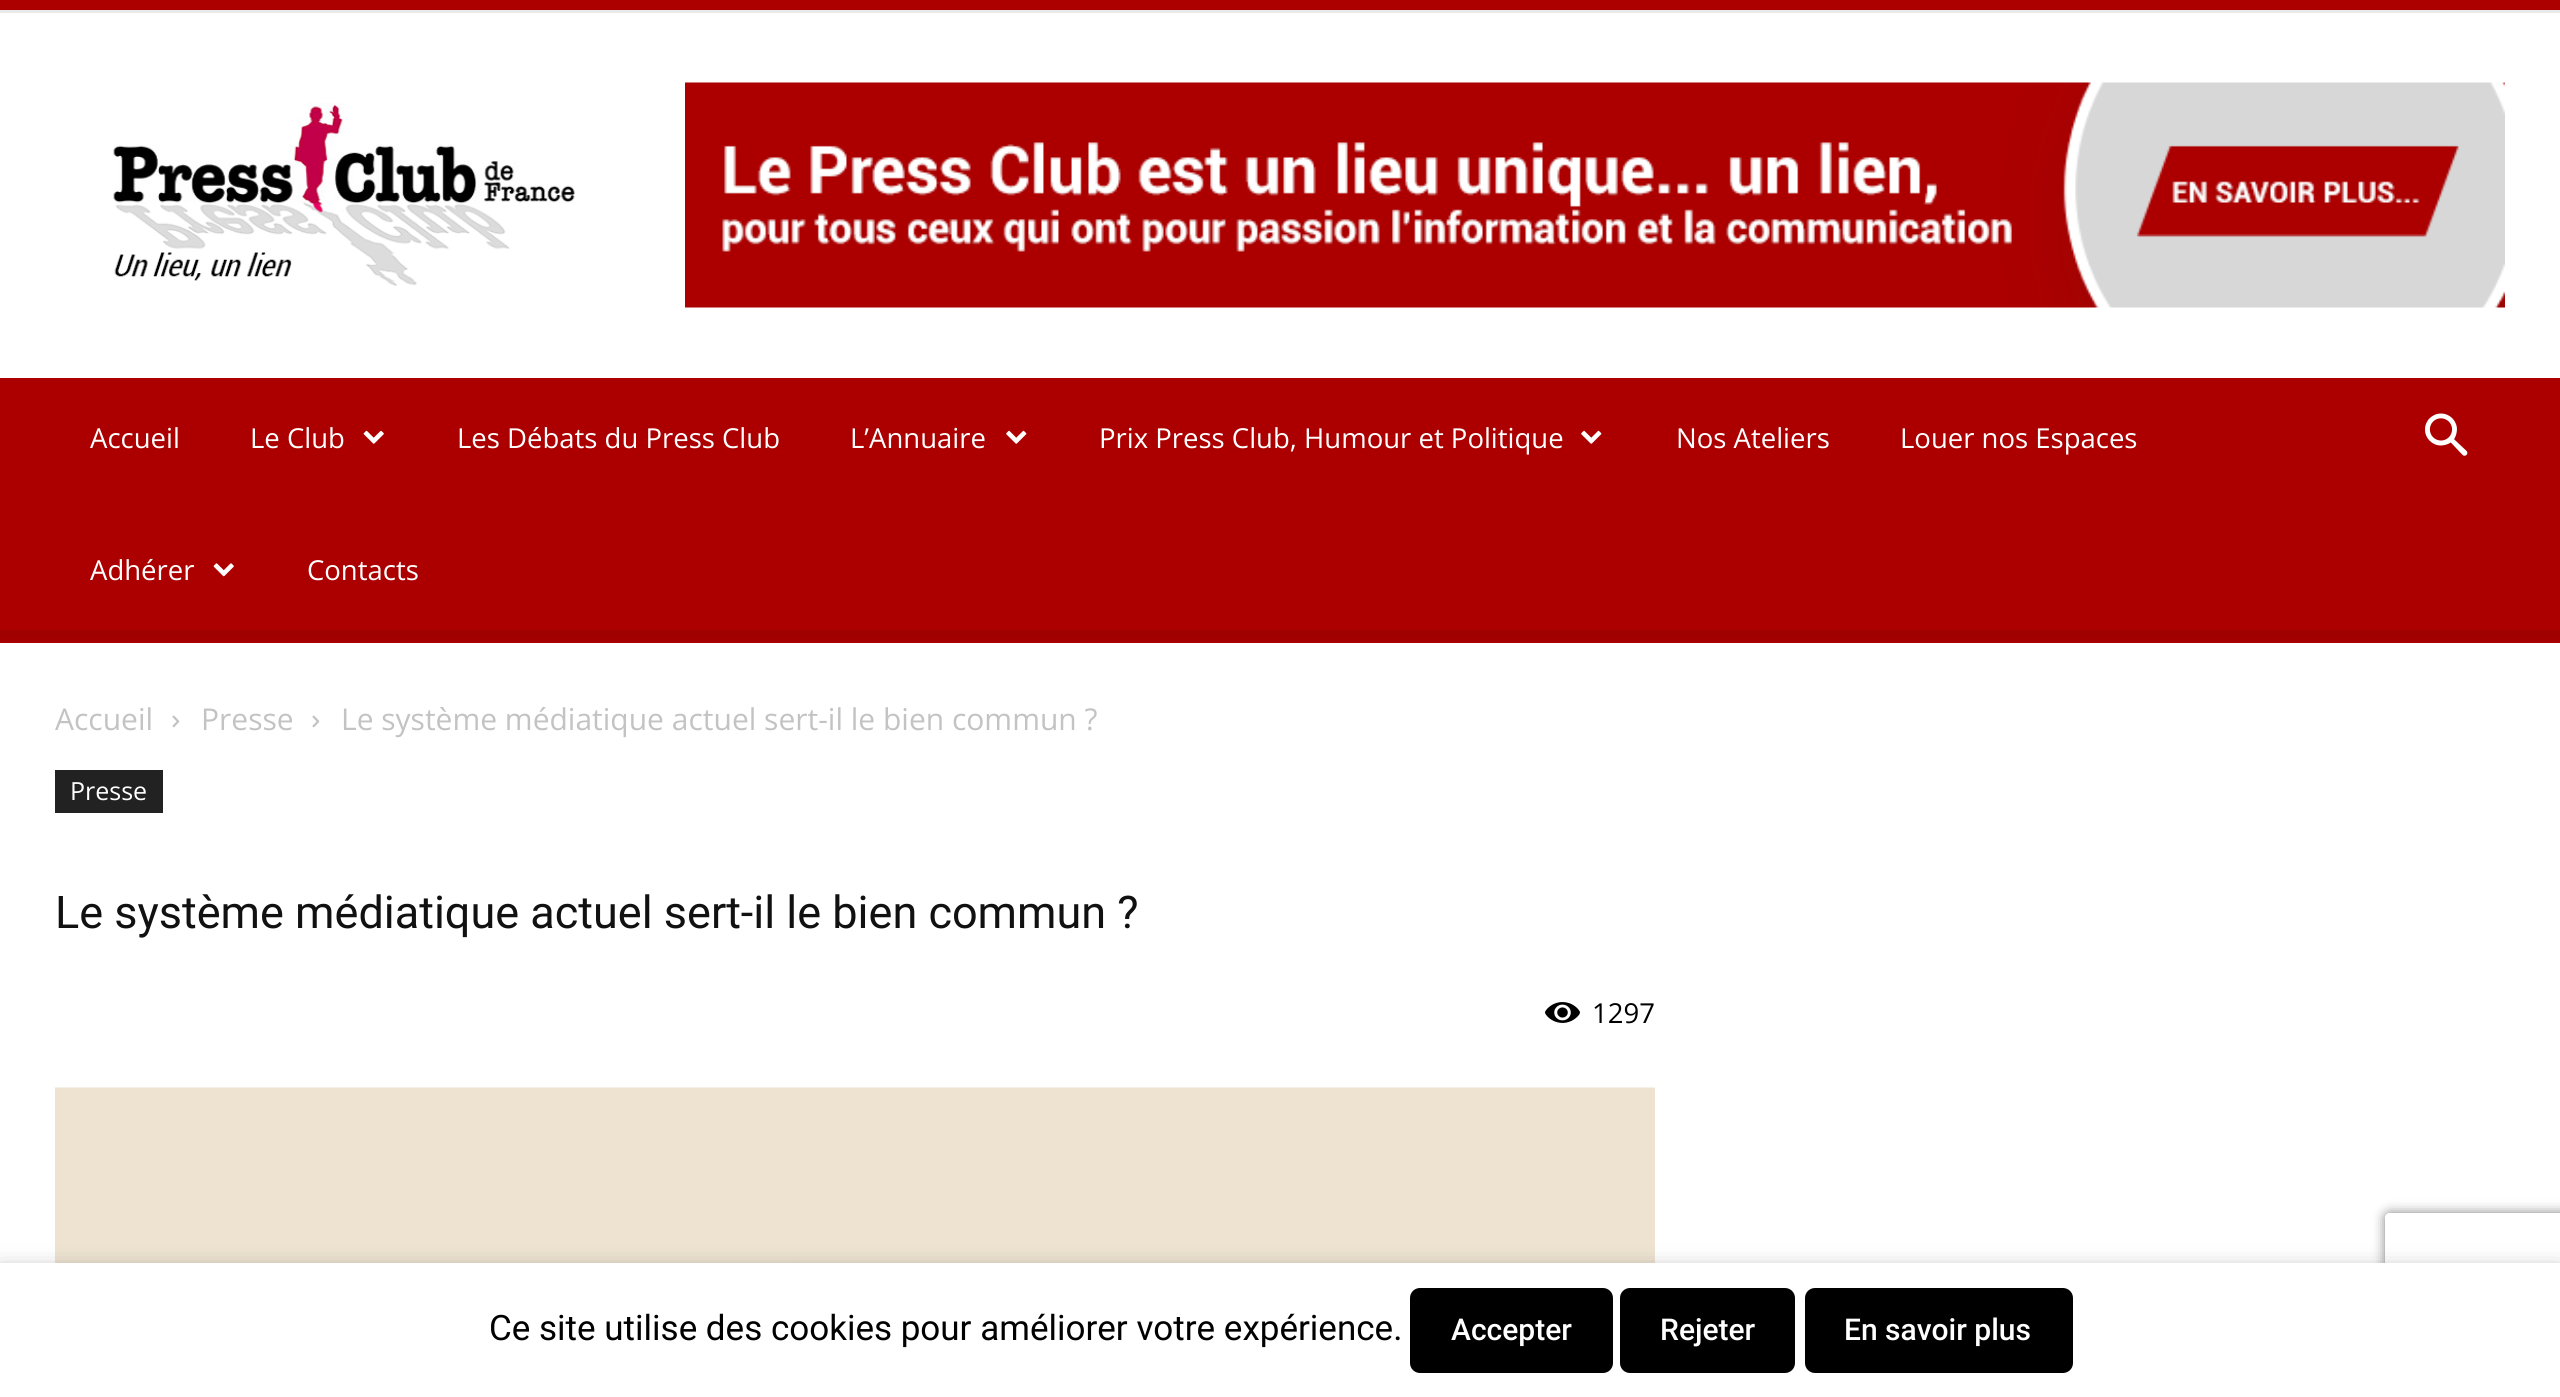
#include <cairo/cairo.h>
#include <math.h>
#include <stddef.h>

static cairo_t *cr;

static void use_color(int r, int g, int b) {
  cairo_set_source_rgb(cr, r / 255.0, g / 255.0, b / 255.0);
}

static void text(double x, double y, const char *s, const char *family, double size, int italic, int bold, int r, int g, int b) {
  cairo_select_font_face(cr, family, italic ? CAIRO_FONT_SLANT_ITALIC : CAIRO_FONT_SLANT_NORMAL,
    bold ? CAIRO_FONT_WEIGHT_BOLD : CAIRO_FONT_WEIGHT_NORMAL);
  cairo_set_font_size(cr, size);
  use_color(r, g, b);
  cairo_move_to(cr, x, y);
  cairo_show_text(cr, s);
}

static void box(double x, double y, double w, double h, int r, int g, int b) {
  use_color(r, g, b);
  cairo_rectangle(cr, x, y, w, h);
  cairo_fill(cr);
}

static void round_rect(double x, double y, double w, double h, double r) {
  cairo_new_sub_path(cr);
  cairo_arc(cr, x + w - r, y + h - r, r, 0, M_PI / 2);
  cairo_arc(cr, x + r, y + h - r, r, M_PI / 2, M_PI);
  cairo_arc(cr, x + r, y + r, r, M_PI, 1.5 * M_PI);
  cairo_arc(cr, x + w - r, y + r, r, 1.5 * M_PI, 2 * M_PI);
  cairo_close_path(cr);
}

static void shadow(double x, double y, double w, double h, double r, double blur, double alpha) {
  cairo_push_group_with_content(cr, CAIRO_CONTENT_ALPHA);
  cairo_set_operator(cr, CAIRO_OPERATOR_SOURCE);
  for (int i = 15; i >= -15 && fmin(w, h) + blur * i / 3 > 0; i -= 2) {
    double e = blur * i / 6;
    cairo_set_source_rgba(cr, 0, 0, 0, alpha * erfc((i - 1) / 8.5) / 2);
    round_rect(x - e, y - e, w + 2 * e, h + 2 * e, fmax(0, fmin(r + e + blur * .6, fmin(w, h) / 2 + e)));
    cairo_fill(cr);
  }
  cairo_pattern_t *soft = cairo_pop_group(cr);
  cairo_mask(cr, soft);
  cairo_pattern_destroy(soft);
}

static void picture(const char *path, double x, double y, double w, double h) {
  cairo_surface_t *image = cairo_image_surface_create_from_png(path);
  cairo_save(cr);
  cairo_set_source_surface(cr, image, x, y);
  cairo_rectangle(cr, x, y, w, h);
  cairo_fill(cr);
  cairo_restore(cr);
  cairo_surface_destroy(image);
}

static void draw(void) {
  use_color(255, 255, 255);
  cairo_paint(cr);
  box(0, 0, 2560, 10, 172, 0, 0);
  box(0, 10, 2560, 3, 233, 233, 233);
  picture("img_01.png", 113, 102, 462, 184);
  picture("img_02.png", 685, 82, 1820, 226);
  box(0, 378, 2560, 265, 172, 0, 0);
  picture("img_03.png", 363, 430, 21, 14);
  picture("img_04.png", 1006, 430, 21, 14);
  picture("img_04.png", 1581, 430, 21, 14);
  picture("img_05.png", 213, 563, 21, 14);
  picture("img_06.png", 2425, 413, 43, 43);
  picture("img_07.png", 0, 630, 2560, 12);
  picture("img_08.png", 172, 715, 8, 13);
  picture("img_08.png", 312, 715, 8, 13);
  box(55, 770, 108, 43, 34, 34, 34);
  picture("img_09.png", 1545, 1002, 35, 21);
  picture("img_10.png", 55, 1087, 1600, 176);
  use_color(0, 0, 0);
  shadow(0, 1275, 2560, 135, 0, 12.5, 0.5);
  cairo_save(cr);
  cairo_set_fill_rule(cr, CAIRO_FILL_RULE_EVEN_ODD);
  cairo_new_path(cr);
  cairo_move_to(cr, 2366, 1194);
  cairo_line_to(cr, 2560, 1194);
  cairo_line_to(cr, 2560, 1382);
  cairo_line_to(cr, 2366, 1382);
  cairo_close_path(cr);
  cairo_move_to(cr, 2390, 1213);
  cairo_line_to(cr, 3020, 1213);
  cairo_curve_to(cr, 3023, 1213, 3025, 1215, 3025, 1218);
  cairo_line_to(cr, 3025, 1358);
  cairo_curve_to(cr, 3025, 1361, 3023, 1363, 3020, 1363);
  cairo_line_to(cr, 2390, 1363);
  cairo_curve_to(cr, 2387, 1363, 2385, 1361, 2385, 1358);
  cairo_line_to(cr, 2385, 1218);
  cairo_curve_to(cr, 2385, 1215, 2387, 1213, 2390, 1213);
  cairo_close_path(cr);
  cairo_clip(cr);
  use_color(128, 128, 128);
  shadow(2385, 1213, 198, 150, 5, 6, 1);
  cairo_restore(cr);
  box(0, 1263, 2560, 134, 255, 255, 255);
  use_color(0, 0, 0);
  round_rect(1410, 1288, 203, 85, 10);
  cairo_fill(cr);
  round_rect(1620, 1288, 175, 85, 10);
  cairo_fill(cr);
  round_rect(1805, 1288, 268, 85, 10);
  cairo_fill(cr);
  text(90, 448, "Accueil", "Open Sans", 27.5, 0, 0, 255, 255, 255);
  text(250, 448, "Le Club", "Open Sans", 27.5, 0, 0, 255, 255, 255);
  text(457, 448, "Les Débats du Press Club", "Open Sans", 27.5, 0, 0, 255, 255, 255);
  text(850, 448, "L’Annuaire", "Open Sans", 27.5, 0, 0, 255, 255, 255);
  text(1099, 448, "Prix Press Club, Humour et Politique", "Open Sans", 27.5, 0, 0, 255, 255, 255);
  text(1676, 448, "Nos Ateliers", "Open Sans", 27.5, 0, 0, 255, 255, 255);
  text(1900, 448, "Louer nos Espaces", "Open Sans", 27.5, 0, 0, 255, 255, 255);
  text(90, 580, "Adhérer", "Open Sans", 27.5, 0, 0, 255, 255, 255);
  text(307, 580, "Contacts", "Open Sans", 27.5, 0, 0, 255, 255, 255);
  text(55, 730, "Accueil", "Open Sans", 30, 0, 0, 195, 195, 195);
  text(201, 730, "Presse", "Open Sans", 30, 0, 0, 195, 195, 195);
  text(341, 730, "Le système médiatique actuel sert-il le bien commun ?", "Open Sans", 30, 0, 0, 195, 195, 195);
  text(70, 800, "Presse", "Open Sans", 25, 0, 0, 255, 255, 255);
  text(55, 928, "Le système médiatique actuel sert-il le bien commun ?", "Roboto", 45, 0, 0, 17, 17, 17);
  text(1592, 1023, "1297", "Open Sans", 27.5, 0, 0, 0, 0, 0);
  text(489, 1340, "Ce site utilise des cookies pour améliorer votre expérience.", "Roboto", 35, 0, 0, 0, 0, 0);
  text(1451, 1340, "Accepter", "Roboto Medium", 30, 0, 0, 255, 255, 255);
  text(1660, 1340, "Rejeter", "Roboto Medium", 30, 0, 0, 255, 255, 255);
  text(1844, 1340, "En savoir plus", "Roboto Medium", 30, 0, 0, 255, 255, 255);
}

int main(void) {
  cairo_surface_t *surface = cairo_image_surface_create(CAIRO_FORMAT_RGB24, 2560, 1397);
  cr = cairo_create(surface);
  cairo_font_options_t *options = cairo_font_options_create();
  cairo_font_options_set_hint_metrics(options, CAIRO_HINT_METRICS_OFF);
  cairo_font_options_set_hint_style(options, CAIRO_HINT_STYLE_NONE);
  cairo_set_font_options(cr, options);
  cairo_set_miter_limit(cr, 4);
  draw();
  cairo_surface_write_to_png(surface, "out.png");
  cairo_font_options_destroy(options);
  cairo_destroy(cr);
  cairo_surface_destroy(surface);
  return 0;
}
